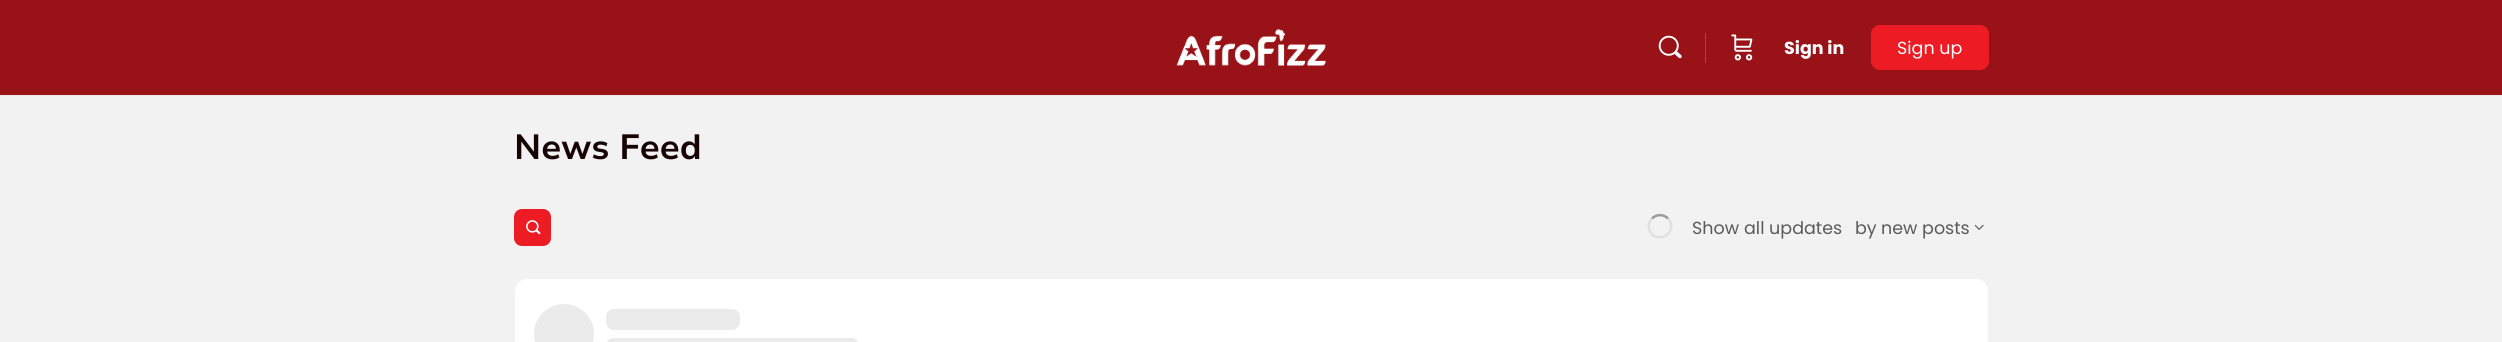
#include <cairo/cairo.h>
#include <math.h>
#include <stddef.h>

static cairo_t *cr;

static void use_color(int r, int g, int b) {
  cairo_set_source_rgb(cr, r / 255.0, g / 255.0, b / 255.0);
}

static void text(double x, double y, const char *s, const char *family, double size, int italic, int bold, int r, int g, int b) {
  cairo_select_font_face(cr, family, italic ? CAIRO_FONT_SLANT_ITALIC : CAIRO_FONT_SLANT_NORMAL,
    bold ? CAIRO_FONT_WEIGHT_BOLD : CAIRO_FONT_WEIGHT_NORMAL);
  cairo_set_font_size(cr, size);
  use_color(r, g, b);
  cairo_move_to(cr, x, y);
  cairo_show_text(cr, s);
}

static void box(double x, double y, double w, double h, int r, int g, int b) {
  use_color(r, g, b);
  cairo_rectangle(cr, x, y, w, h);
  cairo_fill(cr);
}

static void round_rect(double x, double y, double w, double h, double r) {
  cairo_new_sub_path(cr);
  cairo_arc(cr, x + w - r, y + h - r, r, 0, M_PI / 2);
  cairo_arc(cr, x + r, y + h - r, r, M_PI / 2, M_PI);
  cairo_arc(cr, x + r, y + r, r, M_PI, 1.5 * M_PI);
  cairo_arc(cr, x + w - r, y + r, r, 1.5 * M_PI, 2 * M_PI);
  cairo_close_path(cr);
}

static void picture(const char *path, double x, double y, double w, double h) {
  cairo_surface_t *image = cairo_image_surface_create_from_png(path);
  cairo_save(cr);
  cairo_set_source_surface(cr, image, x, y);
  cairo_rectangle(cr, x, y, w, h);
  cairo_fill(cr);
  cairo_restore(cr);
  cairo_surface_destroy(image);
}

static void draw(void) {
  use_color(242, 242, 243);
  cairo_paint(cr);
  use_color(234, 234, 237);
  cairo_new_path(cr);
  cairo_move_to(cr, 0, 95);
  cairo_line_to(cr, 0, 96);
  cairo_line_to(cr, 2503, 96);
  cairo_line_to(cr, 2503, 1);
  cairo_line_to(cr, 2502, 1);
  cairo_line_to(cr, 2502, 95);
  cairo_close_path(cr);
  cairo_fill(cr);
  box(0, 0, 2502, 95, 152, 18, 23);
  picture("img_01.png", 1176, 29, 151, 37);
  picture("img_02.png", 1658, 35, 24, 24);
  box(1705, 33, 1, 30, 173, 65, 69);
  picture("img_03.png", 1731, 34, 22, 27);
  use_color(237, 28, 36);
  round_rect(1871.5, 25.5, 117, 44, 8.5);
  cairo_fill_preserve(cr);
  cairo_set_line_width(cr, 1);
  cairo_stroke(cr);
  round_rect(514, 209, 37, 37, 8);
  cairo_fill(cr);
  picture("img_04.png", 526, 220, 15, 15);
  cairo_new_path(cr);
  cairo_move_to(cr, 1652, 218.5);
  cairo_curve_to(cr, 1656.5, 214, 1663.5, 214, 1668, 218.5);
  use_color(155, 156, 159);
  cairo_set_line_width(cr, 2.5);
  cairo_stroke(cr);
  cairo_new_path(cr);
  cairo_move_to(cr, 1668, 218.5);
  cairo_curve_to(cr, 1670, 220.5, 1671.5, 223.5, 1671, 226);
  cairo_curve_to(cr, 1671, 239.5, 1651.5, 241.5, 1649, 228.5);
  cairo_curve_to(cr, 1648, 225, 1649.5, 221, 1652, 218.5);
  cairo_set_source_rgba(cr, 0.608, 0.612, 0.624, 0.2);
  cairo_stroke(cr);
  picture("img_05.png", 1974, 224, 10, 6);
  use_color(255, 255, 255);
  round_rect(514.5, 278.5, 1474, 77, 12.5);
  cairo_fill_preserve(cr);
  use_color(242, 242, 243);
  cairo_set_line_width(cr, 1);
  cairo_stroke(cr);
  use_color(235, 235, 236);
  cairo_arc(cr, 564, 334, 30, 0, 2 * M_PI);
  cairo_fill(cr);
  round_rect(606, 309, 134, 21, 8);
  cairo_fill(cr);
  round_rect(606, 338, 253, 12, 7.5);
  cairo_fill(cr);
  text(1784, 54, "Sign in", "Poppins", 17.5, 0, 1, 255, 255, 255);
  text(1897, 54, "Sign up", "Poppins", 17.5, 0, 0, 255, 255, 255);
  text(514, 159, "News Feed", "Nunito Sans", 35, 0, 1, 24, 3, 4);
  text(1692, 234, "Show", "Poppins", 17.5, 0, 0, 90, 90, 90);
  text(1744, 234, "all updates", "Poppins", 17.5, 0, 0, 90, 90, 90);
  text(1855, 234, "by", "Poppins", 17.5, 0, 0, 90, 90, 90);
  text(1881, 234, "new posts", "Poppins", 17.5, 0, 0, 90, 90, 90);
}

int main(void) {
  cairo_surface_t *surface = cairo_image_surface_create(CAIRO_FORMAT_RGB24, 2502, 342);
  cr = cairo_create(surface);
  cairo_font_options_t *options = cairo_font_options_create();
  cairo_font_options_set_hint_metrics(options, CAIRO_HINT_METRICS_OFF);
  cairo_font_options_set_hint_style(options, CAIRO_HINT_STYLE_NONE);
  cairo_set_font_options(cr, options);
  cairo_set_miter_limit(cr, 4);
  draw();
  cairo_surface_write_to_png(surface, "out.png");
  cairo_font_options_destroy(options);
  cairo_destroy(cr);
  cairo_surface_destroy(surface);
  return 0;
}
